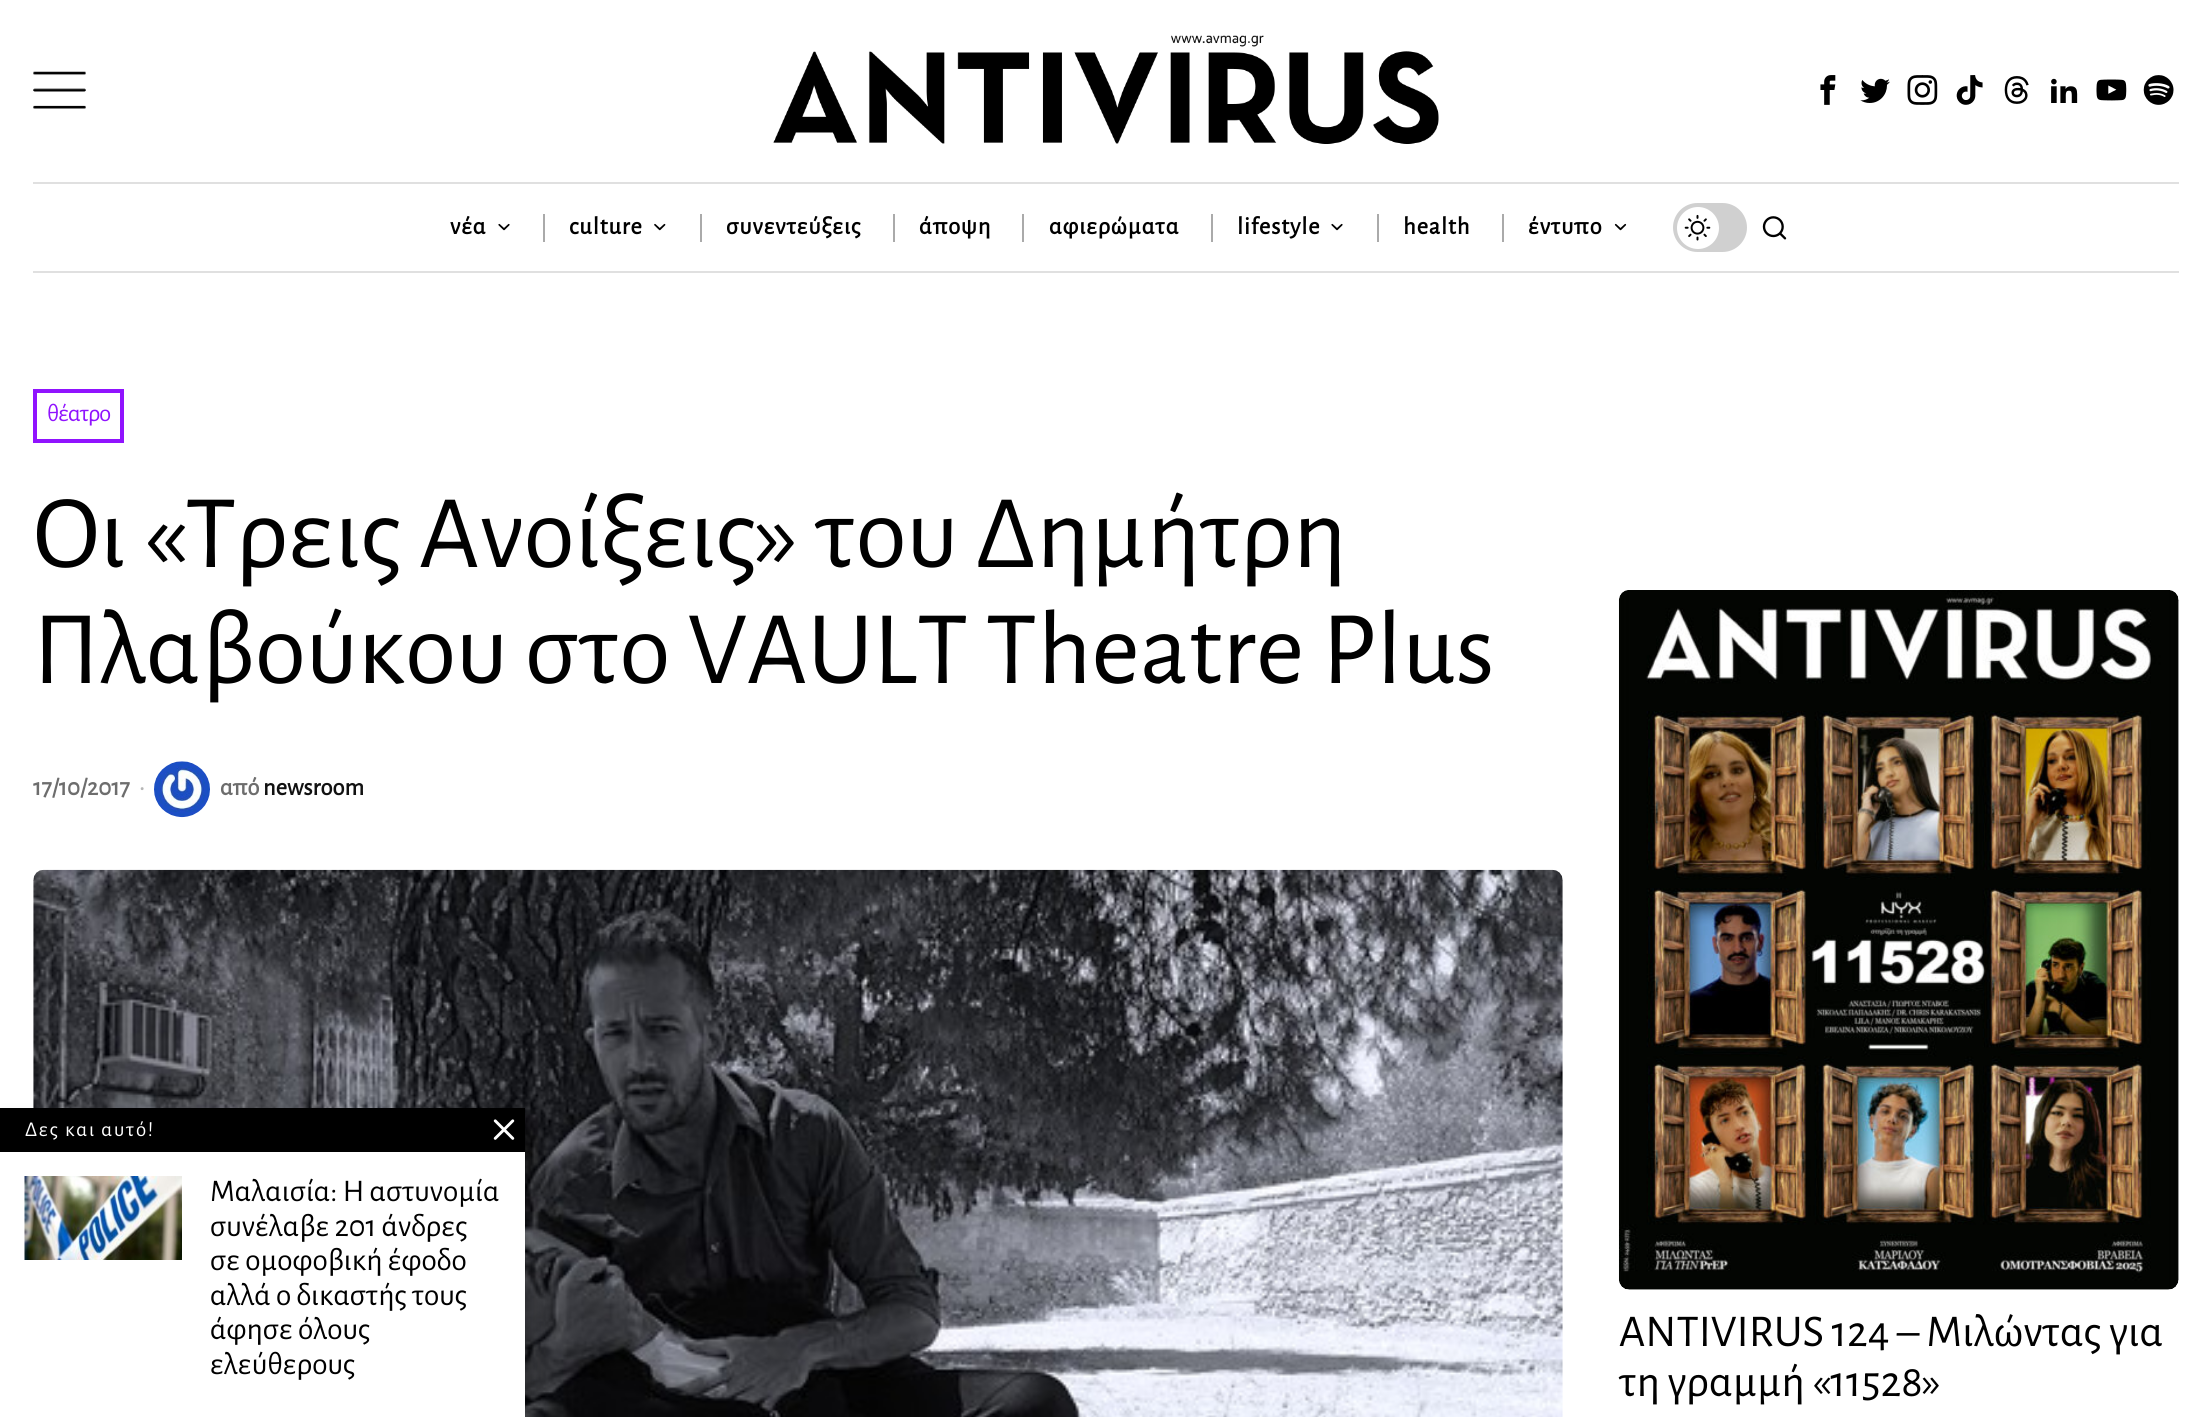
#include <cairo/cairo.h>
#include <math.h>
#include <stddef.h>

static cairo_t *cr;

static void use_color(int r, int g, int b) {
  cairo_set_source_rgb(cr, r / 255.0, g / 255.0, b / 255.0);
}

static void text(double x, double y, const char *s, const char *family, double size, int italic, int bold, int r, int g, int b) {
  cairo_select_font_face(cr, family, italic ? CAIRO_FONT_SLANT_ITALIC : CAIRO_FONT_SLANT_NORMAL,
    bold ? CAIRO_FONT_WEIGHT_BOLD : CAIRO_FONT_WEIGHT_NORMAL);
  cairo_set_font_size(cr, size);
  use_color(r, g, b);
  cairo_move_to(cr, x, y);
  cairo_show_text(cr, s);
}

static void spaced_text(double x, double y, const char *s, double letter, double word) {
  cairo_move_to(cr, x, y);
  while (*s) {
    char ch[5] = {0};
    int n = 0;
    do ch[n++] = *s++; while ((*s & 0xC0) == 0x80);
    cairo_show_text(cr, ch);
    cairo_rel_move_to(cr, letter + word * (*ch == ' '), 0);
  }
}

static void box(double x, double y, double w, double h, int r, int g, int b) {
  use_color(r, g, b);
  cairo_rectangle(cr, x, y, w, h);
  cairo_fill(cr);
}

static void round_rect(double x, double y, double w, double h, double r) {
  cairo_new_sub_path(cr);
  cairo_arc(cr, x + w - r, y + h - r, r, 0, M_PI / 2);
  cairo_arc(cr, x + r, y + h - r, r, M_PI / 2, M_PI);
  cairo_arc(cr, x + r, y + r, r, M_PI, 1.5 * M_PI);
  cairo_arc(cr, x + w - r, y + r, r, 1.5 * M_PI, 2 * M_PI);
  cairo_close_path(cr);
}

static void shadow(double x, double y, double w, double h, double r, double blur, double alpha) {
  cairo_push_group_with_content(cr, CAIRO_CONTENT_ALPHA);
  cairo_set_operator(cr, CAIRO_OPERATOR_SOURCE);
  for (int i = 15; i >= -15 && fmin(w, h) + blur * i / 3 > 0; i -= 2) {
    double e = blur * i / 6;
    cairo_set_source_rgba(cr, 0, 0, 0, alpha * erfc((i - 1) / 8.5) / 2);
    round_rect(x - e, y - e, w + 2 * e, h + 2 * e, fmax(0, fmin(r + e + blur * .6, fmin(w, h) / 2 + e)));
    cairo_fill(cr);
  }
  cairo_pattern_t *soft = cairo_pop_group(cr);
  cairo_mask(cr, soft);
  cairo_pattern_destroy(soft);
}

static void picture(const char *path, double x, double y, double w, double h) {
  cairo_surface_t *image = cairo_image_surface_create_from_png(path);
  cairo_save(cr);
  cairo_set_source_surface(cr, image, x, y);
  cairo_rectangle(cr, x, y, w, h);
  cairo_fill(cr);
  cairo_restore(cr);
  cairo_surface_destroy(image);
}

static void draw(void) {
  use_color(255, 255, 255);
  cairo_paint(cr);
  picture("img_01.png", 33, 71, 53, 38);
  picture("img_02.png", 773, 35, 666, 109);
  picture("img_03.png", 1820, 75, 16, 30);
  picture("img_04.png", 1860, 78, 30, 25);
  picture("img_05.png", 1907, 75, 31, 30);
  picture("img_06.png", 1956, 75, 27, 30);
  picture("img_07.png", 2004, 76, 25, 28);
  picture("img_08.png", 2051, 78, 27, 25);
  picture("img_09.png", 2096, 79, 31, 22);
  picture("img_10.png", 2143, 75, 31, 30);
  box(33, 182, 2146, 2, 224, 224, 224);
  box(33, 271, 2146, 2, 224, 224, 224);
  picture("img_11.png", 498, 223, 12, 8);
  box(543, 214, 2, 28, 170, 170, 170);
  picture("img_12.png", 654, 223, 12, 8);
  box(700, 214, 2, 28, 170, 170, 170);
  box(893, 214, 2, 28, 170, 170, 170);
  box(1022, 214, 2, 28, 170, 170, 170);
  box(1211, 214, 2, 28, 170, 170, 170);
  picture("img_11.png", 1331, 223, 12, 8);
  box(1377, 214, 2, 28, 170, 170, 170);
  box(1502, 214, 2, 28, 170, 170, 170);
  picture("img_13.png", 1614, 223, 13, 8);
  use_color(208, 208, 208);
  round_rect(1675, 205, 70, 45, 22.5);
  cairo_fill_preserve(cr);
  cairo_set_line_width(cr, 4);
  cairo_stroke(cr);
  use_color(255, 255, 255);
  cairo_arc(cr, 1698, 228, 21, 0, 2 * M_PI);
  cairo_fill(cr);
  picture("img_14.png", 1684, 214, 27, 27);
  picture("img_15.png", 1762, 216, 25, 24);
  cairo_rectangle(cr, 35, 391, 87, 50);
  use_color(144, 19, 254);
  cairo_stroke(cr);
  picture("img_16.png", 154, 761, 56, 57);
  picture("img_17.png", 33, 869, 1530, 548);
  picture("img_18.png", 1618, 590, 561, 700);
  use_color(0, 0, 0);
  shadow(5, 1122, 525, 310, 0, 9, 0.3);
  box(0, 1152, 525, 265, 255, 255, 255);
  box(0, 1108, 525, 44, 0, 0, 0);
  picture("img_19.png", 493, 1119, 22, 21);
  picture("img_20.png", 24, 1176, 158, 84);
  cairo_select_font_face(cr, "Alegreya Sans", CAIRO_FONT_SLANT_NORMAL, CAIRO_FONT_WEIGHT_BOLD);
  cairo_set_font_size(cr, 24.5);
  spaced_text(450, 234, "νέα", 0.9, 0);
  spaced_text(569, 234, "culture", 0.9, 0);
  spaced_text(726, 234, "συνεντεύξεις", 0.9, 0);
  spaced_text(919, 234, "άποψη", 0.9, 0);
  spaced_text(1049, 234, "αφιερώματα", 0.9, 0);
  spaced_text(1237, 234, "lifestyle", 0.9, 0);
  spaced_text(1403, 234, "health", 0.9, 0);
  spaced_text(1528, 234, "έντυπο", 0.9, 0);
  cairo_select_font_face(cr, "Alegreya Sans", CAIRO_FONT_SLANT_NORMAL, CAIRO_FONT_WEIGHT_NORMAL);
  use_color(144, 19, 254);
  spaced_text(47, 421, "θέατρο", -1, 0);
  text(33, 567, "Οι «Τρεις Ανοίξεις» του Δημήτρη", "Alegreya Sans", 105, 0, 0, 0, 0, 0);
  text(33, 683, "Πλαβούκου στο VAULT Theatre Plus", "Alegreya Sans", 105, 0, 0, 0, 0, 0);
  text(33, 795, "17/10/2017", "Alegreya Sans", 24.5, 0, 1, 109, 109, 109);
  text(139, 795, "·", "Alegreya Sans", 24.5, 0, 1, 182, 182, 182);
  text(220, 795, "από", "Alegreya Sans", 24.5, 0, 1, 109, 109, 109);
  text(263, 795, "newsroom", "Alegreya Sans", 24.5, 0, 1, 17, 17, 17);
  text(1619, 1346, "ΑΝΤΙVIRUS 124 – Μιλώντας για", "Alegreya Sans", 45.5, 0, 0, 0, 0, 0);
  text(1619, 1396, "τη γραμμή «11528»", "Alegreya Sans", 45.5, 0, 0, 0, 0, 0);
  cairo_set_font_size(cr, 21);
  use_color(255, 255, 255);
  spaced_text(25, 1136, "Δες και αυτό!", 1.75, 0);
  text(210, 1201, "Μαλαισία: Η αστυνομία", "Alegreya Sans", 31.5, 0, 0, 0, 0, 0);
  text(210, 1236, "συνέλαβε 201 άνδρες", "Alegreya Sans", 31.5, 0, 0, 0, 0, 0);
  text(210, 1270, "σε ομοφοβική έφοδο", "Alegreya Sans", 31.5, 0, 0, 0, 0, 0);
  text(210, 1305, "αλλά ο δικαστής τους", "Alegreya Sans", 31.5, 0, 0, 0, 0, 0);
  text(210, 1339, "άφησε όλους", "Alegreya Sans", 31.5, 0, 0, 0, 0, 0);
  text(210, 1374, "ελεύθερους", "Alegreya Sans", 31.5, 0, 0, 0, 0, 0);
}

int main(void) {
  cairo_surface_t *surface = cairo_image_surface_create(CAIRO_FORMAT_RGB24, 2211, 1417);
  cr = cairo_create(surface);
  cairo_font_options_t *options = cairo_font_options_create();
  cairo_font_options_set_hint_metrics(options, CAIRO_HINT_METRICS_OFF);
  cairo_font_options_set_hint_style(options, CAIRO_HINT_STYLE_NONE);
  cairo_set_font_options(cr, options);
  cairo_set_miter_limit(cr, 4);
  draw();
  cairo_surface_write_to_png(surface, "out.png");
  cairo_font_options_destroy(options);
  cairo_destroy(cr);
  cairo_surface_destroy(surface);
  return 0;
}
